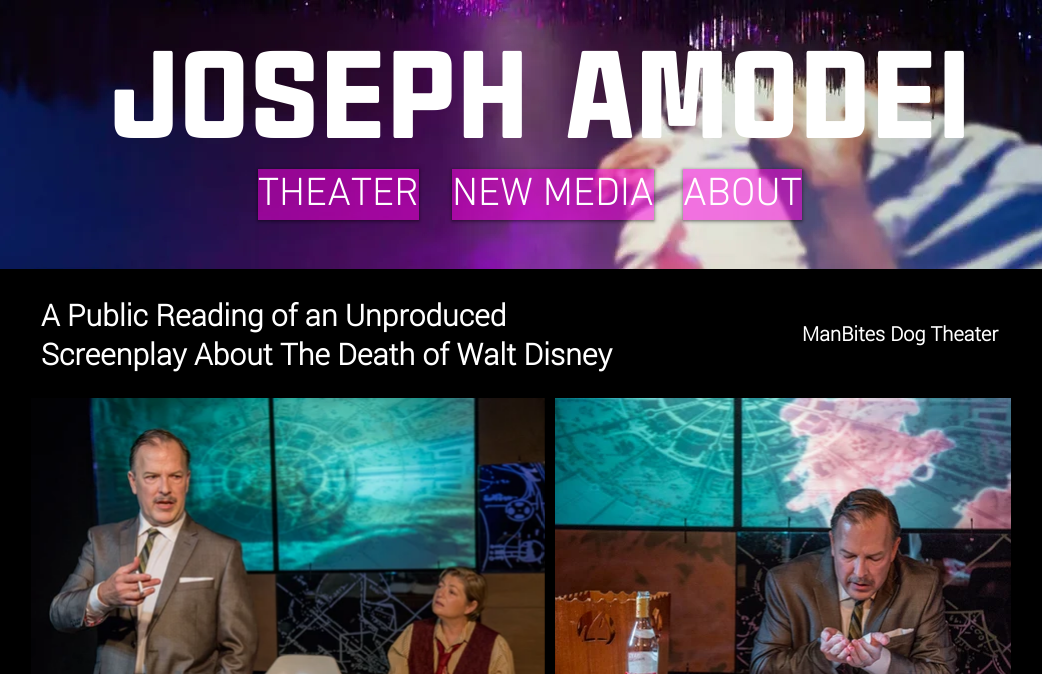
#include <cairo/cairo.h>
#include <math.h>
#include <stddef.h>

static cairo_t *cr;

static void use_color(int r, int g, int b) {
  cairo_set_source_rgb(cr, r / 255.0, g / 255.0, b / 255.0);
}

static void text(double x, double y, const char *s, const char *family, double size, int italic, int bold, int r, int g, int b) {
  cairo_select_font_face(cr, family, italic ? CAIRO_FONT_SLANT_ITALIC : CAIRO_FONT_SLANT_NORMAL,
    bold ? CAIRO_FONT_WEIGHT_BOLD : CAIRO_FONT_WEIGHT_NORMAL);
  cairo_set_font_size(cr, size);
  use_color(r, g, b);
  cairo_move_to(cr, x, y);
  cairo_show_text(cr, s);
}

static void round_rect(double x, double y, double w, double h, double r) {
  cairo_new_sub_path(cr);
  cairo_arc(cr, x + w - r, y + h - r, r, 0, M_PI / 2);
  cairo_arc(cr, x + r, y + h - r, r, M_PI / 2, M_PI);
  cairo_arc(cr, x + r, y + r, r, M_PI, 1.5 * M_PI);
  cairo_arc(cr, x + w - r, y + r, r, 1.5 * M_PI, 2 * M_PI);
  cairo_close_path(cr);
}

static void shadow(double x, double y, double w, double h, double r, double blur, double alpha) {
  cairo_push_group_with_content(cr, CAIRO_CONTENT_ALPHA);
  cairo_set_operator(cr, CAIRO_OPERATOR_SOURCE);
  for (int i = 15; i >= -15 && fmin(w, h) + blur * i / 3 > 0; i -= 2) {
    double e = blur * i / 6;
    cairo_set_source_rgba(cr, 0, 0, 0, alpha * erfc((i - 1) / 8.5) / 2);
    round_rect(x - e, y - e, w + 2 * e, h + 2 * e, fmax(0, fmin(r + e + blur * .6, fmin(w, h) / 2 + e)));
    cairo_fill(cr);
  }
  cairo_pattern_t *soft = cairo_pop_group(cr);
  cairo_mask(cr, soft);
  cairo_pattern_destroy(soft);
}

static void picture(const char *path, double x, double y, double w, double h) {
  cairo_surface_t *image = cairo_image_surface_create_from_png(path);
  cairo_save(cr);
  cairo_set_source_surface(cr, image, x, y);
  cairo_rectangle(cr, x, y, w, h);
  cairo_fill(cr);
  cairo_restore(cr);
  cairo_surface_destroy(image);
}

static void draw(void) {
  use_color(0, 0, 0);
  cairo_paint(cr);
  picture("img_01.png", 0, 0, 1042, 269);
  cairo_save(cr);
  cairo_set_fill_rule(cr, CAIRO_FILL_RULE_EVEN_ODD);
  cairo_new_path(cr);
  cairo_move_to(cr, 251, 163);
  cairo_line_to(cr, 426, 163);
  cairo_line_to(cr, 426, 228);
  cairo_line_to(cr, 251, 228);
  cairo_close_path(cr);
  cairo_move_to(cr, 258, 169);
  cairo_line_to(cr, 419, 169);
  cairo_line_to(cr, 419, 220);
  cairo_line_to(cr, 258, 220);
  cairo_close_path(cr);
  cairo_clip(cr);
  shadow(258, 170, 161, 51, 0, 2, 0.6);
  cairo_restore(cr);
  cairo_set_source_rgba(cr, 1, 0, 0.894, 0.5);
  cairo_rectangle(cr, 258, 169, 161, 51);
  cairo_fill(cr);
  cairo_save(cr);
  cairo_set_fill_rule(cr, CAIRO_FILL_RULE_EVEN_ODD);
  cairo_new_path(cr);
  cairo_move_to(cr, 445, 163);
  cairo_line_to(cr, 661, 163);
  cairo_line_to(cr, 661, 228);
  cairo_line_to(cr, 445, 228);
  cairo_close_path(cr);
  cairo_move_to(cr, 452, 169);
  cairo_line_to(cr, 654, 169);
  cairo_line_to(cr, 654, 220);
  cairo_line_to(cr, 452, 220);
  cairo_close_path(cr);
  cairo_clip(cr);
  use_color(0, 0, 0);
  shadow(452, 170, 202, 51, 0, 2, 0.6);
  cairo_restore(cr);
  cairo_rectangle(cr, 452, 169, 202, 51);
  cairo_fill(cr);
  cairo_save(cr);
  cairo_set_fill_rule(cr, CAIRO_FILL_RULE_EVEN_ODD);
  cairo_new_path(cr);
  cairo_move_to(cr, 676, 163);
  cairo_line_to(cr, 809, 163);
  cairo_line_to(cr, 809, 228);
  cairo_line_to(cr, 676, 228);
  cairo_close_path(cr);
  cairo_move_to(cr, 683, 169);
  cairo_line_to(cr, 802, 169);
  cairo_line_to(cr, 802, 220);
  cairo_line_to(cr, 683, 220);
  cairo_close_path(cr);
  cairo_clip(cr);
  use_color(0, 0, 0);
  shadow(683, 170, 119, 51, 0, 2, 0.6);
  cairo_restore(cr);
  cairo_rectangle(cr, 683, 169, 119, 51);
  cairo_fill(cr);
  picture("img_02.png", 31, 398, 514, 276);
  picture("img_03.png", 555, 398, 456, 276);
  text(111, 138, "JOSEPH AMODEI", "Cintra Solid", 121, 0, 0, 255, 255, 255);
  text(258, 205, "THEATER", "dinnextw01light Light", 40, 0, 0, 255, 255, 255);
  text(452, 205, "NEW MEDIA", "dinnextw01light Light", 40, 0, 0, 255, 255, 255);
  text(683, 205, "ABOUT", "dinnextw01light Light", 40, 0, 0, 255, 255, 255);
  text(41, 326, "A Public Reading of an Unproduced", "Roboto", 30, 0, 1, 255, 255, 255);
  text(41, 365, "Screenplay About The Death of Walt Disney", "Roboto", 30, 0, 1, 255, 255, 255);
  text(802, 341, "ManBites Dog Theater", "Roboto", 20, 0, 1, 255, 255, 255);
}

int main(void) {
  cairo_surface_t *surface = cairo_image_surface_create(CAIRO_FORMAT_RGB24, 1042, 674);
  cr = cairo_create(surface);
  cairo_font_options_t *options = cairo_font_options_create();
  cairo_font_options_set_hint_metrics(options, CAIRO_HINT_METRICS_OFF);
  cairo_font_options_set_hint_style(options, CAIRO_HINT_STYLE_NONE);
  cairo_set_font_options(cr, options);
  cairo_set_miter_limit(cr, 4);
  draw();
  cairo_surface_write_to_png(surface, "out.png");
  cairo_font_options_destroy(options);
  cairo_destroy(cr);
  cairo_surface_destroy(surface);
  return 0;
}
